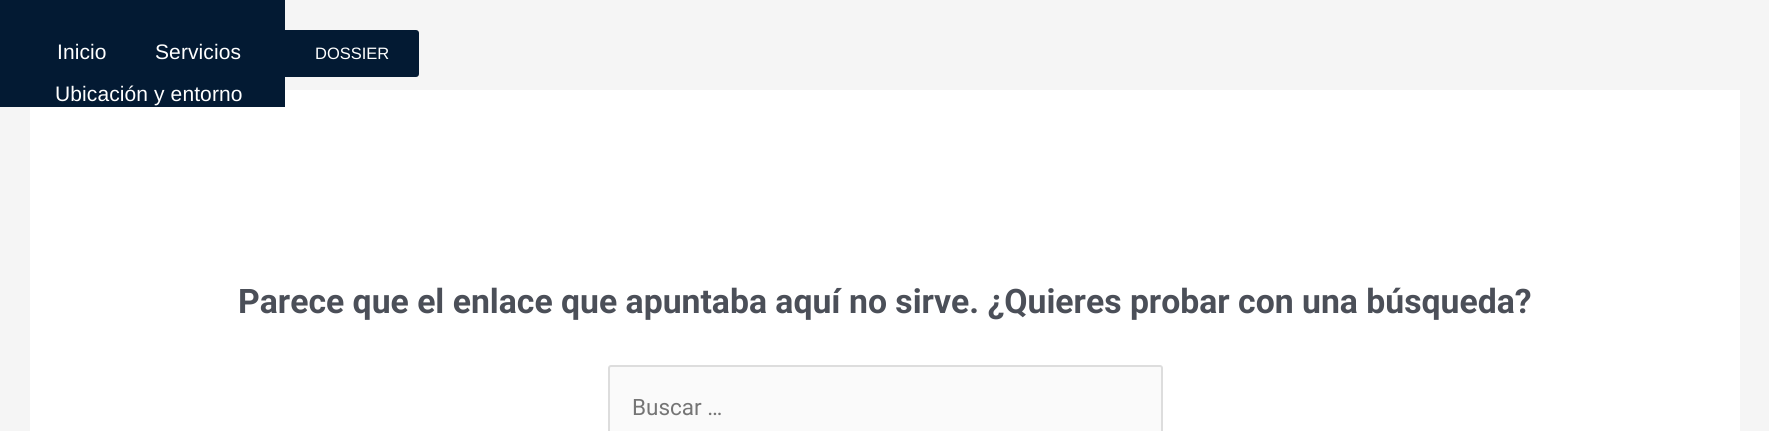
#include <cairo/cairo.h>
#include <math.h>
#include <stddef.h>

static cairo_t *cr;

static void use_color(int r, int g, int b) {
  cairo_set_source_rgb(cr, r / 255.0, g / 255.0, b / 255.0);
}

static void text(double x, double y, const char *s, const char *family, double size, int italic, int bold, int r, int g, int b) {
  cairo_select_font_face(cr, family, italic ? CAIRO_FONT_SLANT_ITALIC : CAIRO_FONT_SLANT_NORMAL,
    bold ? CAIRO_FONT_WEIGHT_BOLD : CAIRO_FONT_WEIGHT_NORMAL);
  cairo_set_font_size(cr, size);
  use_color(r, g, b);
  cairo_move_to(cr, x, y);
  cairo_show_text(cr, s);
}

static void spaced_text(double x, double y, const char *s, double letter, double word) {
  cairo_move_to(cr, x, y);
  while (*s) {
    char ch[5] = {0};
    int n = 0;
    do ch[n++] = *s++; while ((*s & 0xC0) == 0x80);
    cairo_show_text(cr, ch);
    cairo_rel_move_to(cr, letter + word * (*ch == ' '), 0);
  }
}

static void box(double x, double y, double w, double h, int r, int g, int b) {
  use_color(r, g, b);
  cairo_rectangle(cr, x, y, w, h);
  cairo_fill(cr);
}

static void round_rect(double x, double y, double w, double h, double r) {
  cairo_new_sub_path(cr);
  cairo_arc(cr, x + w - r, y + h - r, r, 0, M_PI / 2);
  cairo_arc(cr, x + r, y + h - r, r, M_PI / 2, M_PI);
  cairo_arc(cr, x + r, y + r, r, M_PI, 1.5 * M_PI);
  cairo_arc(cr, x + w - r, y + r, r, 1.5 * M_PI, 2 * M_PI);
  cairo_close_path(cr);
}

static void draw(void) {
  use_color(245, 245, 245);
  cairo_paint(cr);
  box(30, 90, 1710, 341, 255, 255, 255);
  box(0, 0, 285, 107, 3, 26, 51);
  round_rect(278, 30, 141, 47, 3);
  cairo_fill(cr);
  use_color(250, 250, 250);
  round_rect(609, 366, 553, 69, 2);
  cairo_fill_preserve(cr);
  use_color(221, 221, 221);
  cairo_stroke(cr);
  cairo_select_font_face(cr, "Liberation Sans", CAIRO_FONT_SLANT_NORMAL, CAIRO_FONT_WEIGHT_NORMAL);
  cairo_set_font_size(cr, 21);
  use_color(255, 255, 255);
  spaced_text(57, 59, "Inicio", 0.1, 0);
  spaced_text(155, 59, "Servicios", 0.1, 0);
  spaced_text(55, 101, "Ubicación y entorno", 0.1, 0);
  text(315, 59, "DOSSIER", "Liberation Sans", 16.5, 0, 0, 255, 255, 255);
  text(238, 313, "Parece que el enlace que apuntaba aquí no sirve. ¿Quieres probar con una búsqueda?", "Roboto", 33.75, 0, 1, 75, 79, 88);
  text(632, 415, "Buscar …", "Roboto", 22.5, 0, 0, 117, 117, 117);
}

int main(void) {
  cairo_surface_t *surface = cairo_image_surface_create(CAIRO_FORMAT_RGB24, 1769, 431);
  cr = cairo_create(surface);
  cairo_font_options_t *options = cairo_font_options_create();
  cairo_font_options_set_hint_metrics(options, CAIRO_HINT_METRICS_OFF);
  cairo_font_options_set_hint_style(options, CAIRO_HINT_STYLE_NONE);
  cairo_set_font_options(cr, options);
  cairo_set_miter_limit(cr, 4);
  draw();
  cairo_surface_write_to_png(surface, "out.png");
  cairo_font_options_destroy(options);
  cairo_destroy(cr);
  cairo_surface_destroy(surface);
  return 0;
}
